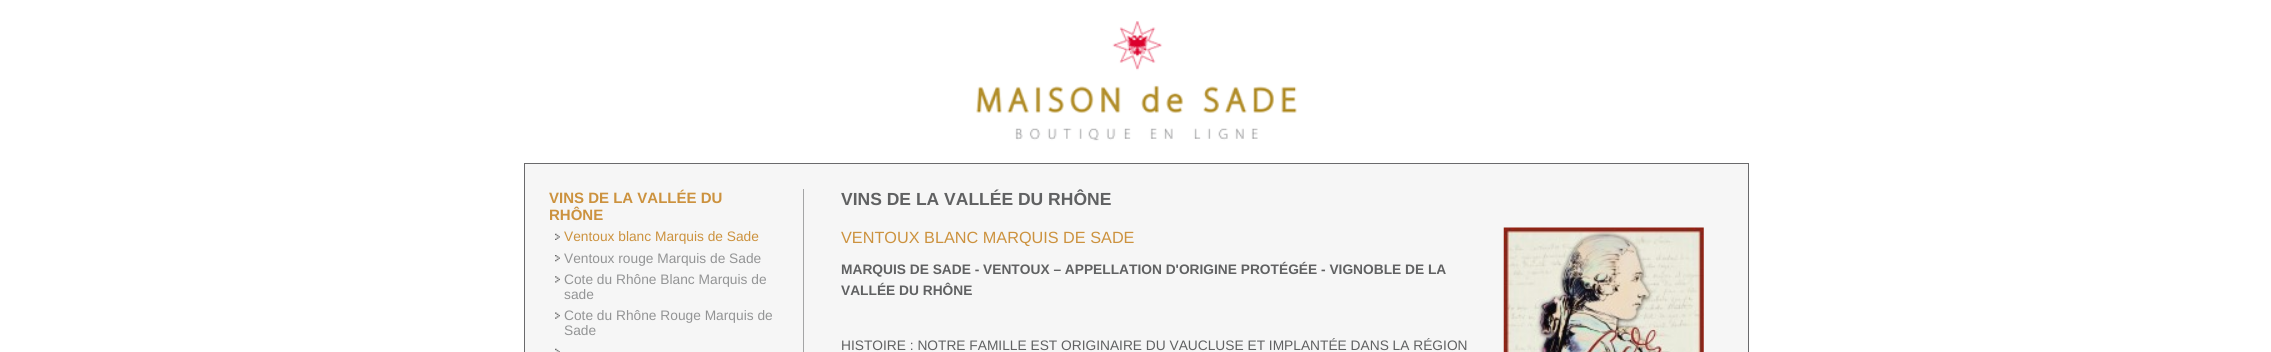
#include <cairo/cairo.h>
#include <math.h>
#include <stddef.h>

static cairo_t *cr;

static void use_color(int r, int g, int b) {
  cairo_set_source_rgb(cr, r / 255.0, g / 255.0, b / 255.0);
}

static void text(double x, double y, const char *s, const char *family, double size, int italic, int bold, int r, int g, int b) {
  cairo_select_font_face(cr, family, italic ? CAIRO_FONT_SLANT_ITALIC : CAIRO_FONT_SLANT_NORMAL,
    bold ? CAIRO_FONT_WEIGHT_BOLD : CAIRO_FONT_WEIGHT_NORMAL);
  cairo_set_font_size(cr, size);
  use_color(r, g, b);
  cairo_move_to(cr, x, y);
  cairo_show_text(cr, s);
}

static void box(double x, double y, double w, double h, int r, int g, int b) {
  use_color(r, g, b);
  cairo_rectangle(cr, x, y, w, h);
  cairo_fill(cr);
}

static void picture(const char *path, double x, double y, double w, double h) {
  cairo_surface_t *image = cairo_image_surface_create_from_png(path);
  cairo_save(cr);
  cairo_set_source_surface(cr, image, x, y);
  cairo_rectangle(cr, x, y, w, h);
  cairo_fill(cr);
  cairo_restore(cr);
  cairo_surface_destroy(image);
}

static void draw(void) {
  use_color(255, 255, 255);
  cairo_paint(cr);
  picture("img_01.png", 976, 21, 321, 120);
  use_color(246, 246, 246);
  cairo_rectangle(cr, 524.5, 163.5, 1224, 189);
  cairo_fill_preserve(cr);
  use_color(106, 106, 108);
  cairo_set_line_width(cr, 1);
  cairo_stroke(cr);
  picture("img_02.png", 555, 233, 5, 7);
  picture("img_03.png", 555, 255, 5, 7);
  picture("img_04.png", 555, 276, 5, 7);
  picture("img_05.png", 555, 312, 5, 7);
  picture("img_06.png", 555, 348, 5, 4);
  box(803, 189, 1, 163, 164, 165, 166);
  picture("img_07.png", 1503, 227, 201, 125);
  text(549, 203, "VINS DE LA VALLÉE DU", "Liberation Sans", 15, 0, 1, 204, 146, 62);
  text(549, 220, "RHÔNE", "Liberation Sans", 15, 0, 1, 204, 146, 62);
  text(564, 241, "Ventoux blanc Marquis de Sade", "Liberation Sans", 13.75, 0, 0, 204, 146, 62);
  text(564, 263, "Ventoux rouge Marquis de Sade", "Liberation Sans", 13.75, 0, 0, 147, 148, 149);
  text(564, 284, "Cote du Rhône Blanc Marquis de", "Liberation Sans", 13.75, 0, 0, 147, 148, 149);
  text(564, 299, "sade", "Liberation Sans", 13.75, 0, 0, 147, 148, 149);
  text(564, 320, "Cote du Rhône Rouge Marquis de", "Liberation Sans", 13.75, 0, 0, 147, 148, 149);
  text(564, 335, "Sade", "Liberation Sans", 13.75, 0, 0, 147, 148, 149);
  text(841, 205, "VINS DE LA VALLÉE DU RHÔNE", "Liberation Sans", 17.5, 0, 1, 96, 97, 98);
  text(841, 243, "VENTOUX BLANC MARQUIS DE SADE", "Liberation Sans", 16.25, 0, 0, 204, 146, 62);
  text(841, 274, "MARQUIS DE SADE - VENTOUX – APPELLATION D'ORIGINE PROTÉGÉE - VIGNOBLE DE LA", "Liberation Sans", 13.75, 0, 1, 96, 97, 98);
  text(841, 295, "VALLÉE DU RHÔNE", "Liberation Sans", 13.75, 0, 1, 96, 97, 98);
  text(841, 350, "HISTOIRE : NOTRE FAMILLE EST ORIGINAIRE DU VAUCLUSE ET IMPLANTÉE DANS LA RÉGION", "Liberation Sans", 13.75, 0, 0, 96, 97, 98);
}

int main(void) {
  cairo_surface_t *surface = cairo_image_surface_create(CAIRO_FORMAT_RGB24, 2271, 352);
  cr = cairo_create(surface);
  cairo_font_options_t *options = cairo_font_options_create();
  cairo_font_options_set_hint_metrics(options, CAIRO_HINT_METRICS_OFF);
  cairo_font_options_set_hint_style(options, CAIRO_HINT_STYLE_NONE);
  cairo_set_font_options(cr, options);
  cairo_set_miter_limit(cr, 4);
  draw();
  cairo_surface_write_to_png(surface, "out.png");
  cairo_font_options_destroy(options);
  cairo_destroy(cr);
  cairo_surface_destroy(surface);
  return 0;
}
